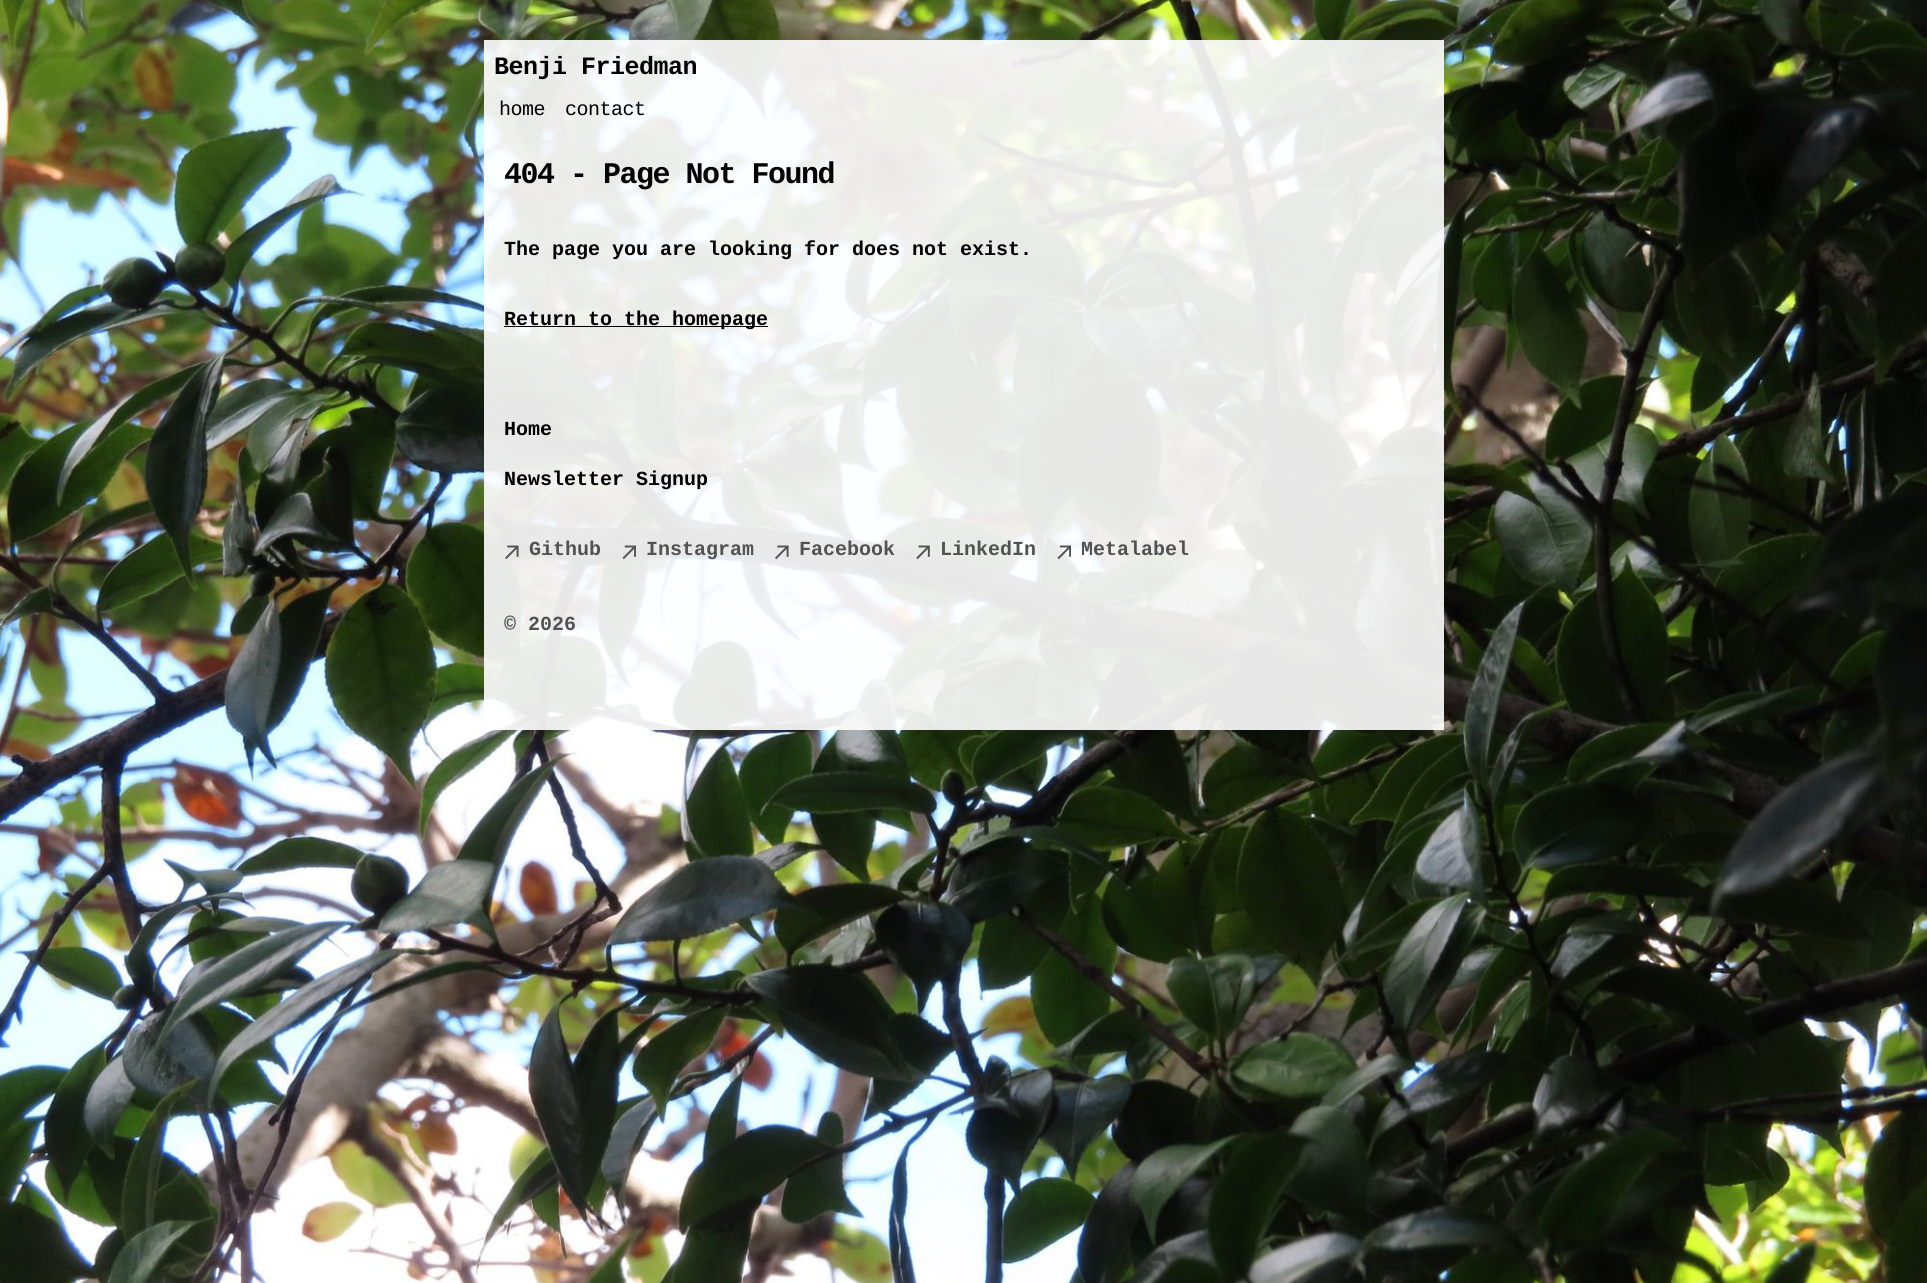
#include <cairo/cairo.h>
#include <math.h>
#include <stddef.h>

static cairo_t *cr;

static void use_color(int r, int g, int b) {
  cairo_set_source_rgb(cr, r / 255.0, g / 255.0, b / 255.0);
}

static void text(double x, double y, const char *s, const char *family, double size, int italic, int bold, int r, int g, int b) {
  cairo_select_font_face(cr, family, italic ? CAIRO_FONT_SLANT_ITALIC : CAIRO_FONT_SLANT_NORMAL,
    bold ? CAIRO_FONT_WEIGHT_BOLD : CAIRO_FONT_WEIGHT_NORMAL);
  cairo_set_font_size(cr, size);
  use_color(r, g, b);
  cairo_move_to(cr, x, y);
  cairo_show_text(cr, s);
}

static void spaced_text(double x, double y, const char *s, double letter, double word) {
  cairo_move_to(cr, x, y);
  while (*s) {
    char ch[5] = {0};
    int n = 0;
    do ch[n++] = *s++; while ((*s & 0xC0) == 0x80);
    cairo_show_text(cr, ch);
    cairo_rel_move_to(cr, letter + word * (*ch == ' '), 0);
  }
}

static void box(double x, double y, double w, double h, int r, int g, int b) {
  use_color(r, g, b);
  cairo_rectangle(cr, x, y, w, h);
  cairo_fill(cr);
}

static void picture(const char *path, double x, double y, double w, double h) {
  cairo_surface_t *image = cairo_image_surface_create_from_png(path);
  cairo_save(cr);
  cairo_set_source_surface(cr, image, x, y);
  cairo_rectangle(cr, x, y, w, h);
  cairo_fill(cr);
  cairo_restore(cr);
  cairo_surface_destroy(image);
}

static void draw(void) {
  use_color(255, 255, 255);
  cairo_paint(cr);
  picture("img_01.png", 0, 0, 1927, 1283);
  cairo_set_source_rgba(cr, 1, 1, 1, 0.9);
  cairo_rectangle(cr, 484, 40, 960, 690);
  cairo_fill(cr);
  box(504, 326, 264, 1, 0, 0, 0);
  picture("img_02.png", 505, 545, 14, 15);
  picture("img_03.png", 622, 545, 14, 15);
  picture("img_04.png", 775, 545, 14, 15);
  picture("img_05.png", 916, 545, 14, 15);
  picture("img_06.png", 1057, 545, 14, 15);
  cairo_select_font_face(cr, "Liberation Mono", CAIRO_FONT_SLANT_NORMAL, CAIRO_FONT_WEIGHT_BOLD);
  cairo_set_font_size(cr, 25);
  spaced_text(494, 74, "Benji Friedman", -0.5, 0);
  cairo_select_font_face(cr, "Liberation Mono", CAIRO_FONT_SLANT_NORMAL, CAIRO_FONT_WEIGHT_NORMAL);
  cairo_set_font_size(cr, 20);
  spaced_text(499, 115, "home", -0.5, 0);
  spaced_text(565, 115, "contact", -0.5, 0);
  cairo_select_font_face(cr, "Liberation Mono", CAIRO_FONT_SLANT_NORMAL, CAIRO_FONT_WEIGHT_BOLD);
  cairo_set_font_size(cr, 30);
  spaced_text(504, 183, "404 - Page Not Found", -1.5, 0);
  text(504, 255, "The page you are looking for does not exist.", "Liberation Mono", 20, 0, 1, 0, 0, 0);
  text(504, 325, "Return to the homepage", "Liberation Mono", 20, 0, 1, 0, 0, 0);
  text(504, 435, "Home", "Liberation Mono", 20, 0, 1, 0, 0, 0);
  text(504, 485, "Newsletter Signup", "Liberation Mono", 20, 0, 1, 0, 0, 0);
  text(529, 555, "Github", "Liberation Mono", 20, 0, 1, 82, 82, 82);
  text(646, 555, "Instagram", "Liberation Mono", 20, 0, 1, 82, 82, 82);
  text(799, 555, "Facebook", "Liberation Mono", 20, 0, 1, 82, 82, 82);
  text(940, 555, "LinkedIn", "Liberation Mono", 20, 0, 1, 82, 82, 82);
  text(1081, 555, "Metalabel", "Liberation Mono", 20, 0, 1, 82, 82, 82);
  text(504, 630, "© 2026", "Liberation Mono", 20, 0, 1, 82, 82, 82);
}

int main(void) {
  cairo_surface_t *surface = cairo_image_surface_create(CAIRO_FORMAT_RGB24, 1927, 1283);
  cr = cairo_create(surface);
  cairo_font_options_t *options = cairo_font_options_create();
  cairo_font_options_set_hint_metrics(options, CAIRO_HINT_METRICS_OFF);
  cairo_font_options_set_hint_style(options, CAIRO_HINT_STYLE_NONE);
  cairo_set_font_options(cr, options);
  cairo_set_miter_limit(cr, 4);
  draw();
  cairo_surface_write_to_png(surface, "out.png");
  cairo_font_options_destroy(options);
  cairo_destroy(cr);
  cairo_surface_destroy(surface);
  return 0;
}
